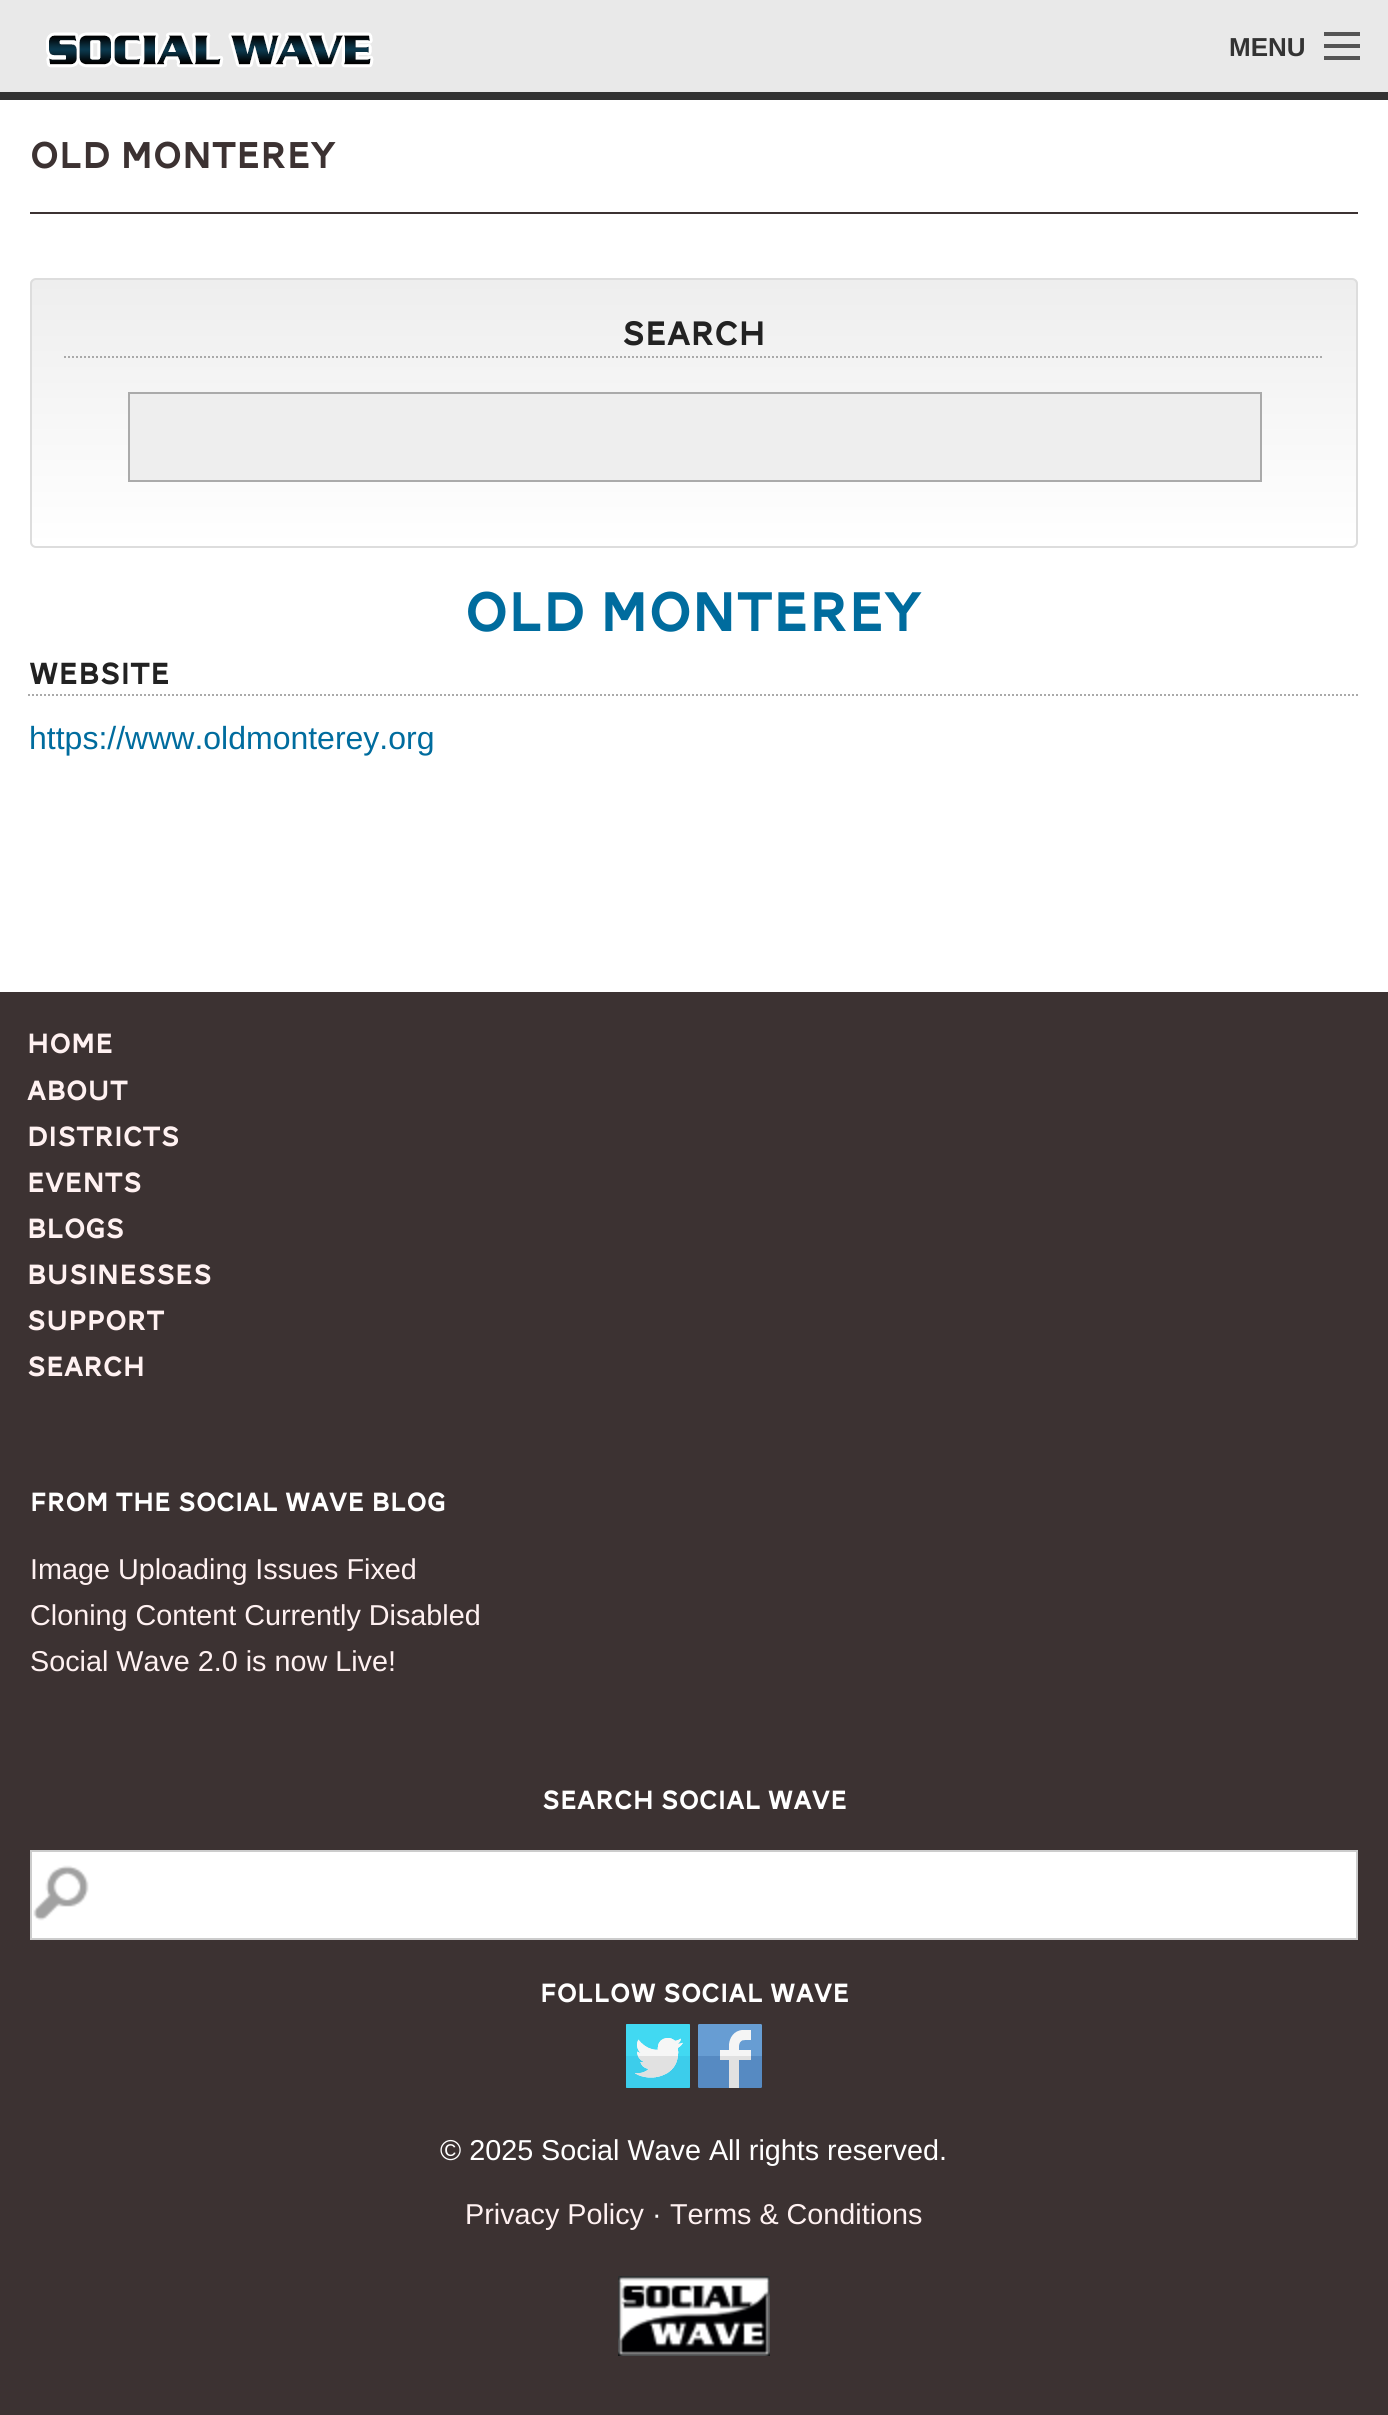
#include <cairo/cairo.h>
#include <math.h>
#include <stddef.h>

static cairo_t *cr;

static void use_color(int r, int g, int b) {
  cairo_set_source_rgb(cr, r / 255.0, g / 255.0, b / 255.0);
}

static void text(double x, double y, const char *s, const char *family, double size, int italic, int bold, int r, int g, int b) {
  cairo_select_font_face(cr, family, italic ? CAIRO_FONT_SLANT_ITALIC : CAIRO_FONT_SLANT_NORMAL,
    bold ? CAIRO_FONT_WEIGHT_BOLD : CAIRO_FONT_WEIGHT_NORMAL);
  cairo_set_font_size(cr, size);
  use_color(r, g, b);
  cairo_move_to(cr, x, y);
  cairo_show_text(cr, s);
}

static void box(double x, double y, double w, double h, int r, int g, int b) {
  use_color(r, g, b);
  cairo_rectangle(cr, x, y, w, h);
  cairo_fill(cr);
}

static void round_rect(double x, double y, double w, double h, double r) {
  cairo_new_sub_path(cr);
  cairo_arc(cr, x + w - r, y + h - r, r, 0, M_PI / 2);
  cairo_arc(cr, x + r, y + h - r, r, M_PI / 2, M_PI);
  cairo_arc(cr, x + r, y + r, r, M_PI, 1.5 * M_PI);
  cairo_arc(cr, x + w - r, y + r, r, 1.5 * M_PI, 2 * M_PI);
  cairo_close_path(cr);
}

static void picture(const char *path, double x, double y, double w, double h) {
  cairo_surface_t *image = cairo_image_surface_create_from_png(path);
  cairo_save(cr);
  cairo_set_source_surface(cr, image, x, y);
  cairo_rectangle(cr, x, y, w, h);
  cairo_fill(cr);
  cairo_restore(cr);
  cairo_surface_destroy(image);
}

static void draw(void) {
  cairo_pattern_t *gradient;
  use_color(255, 255, 255);
  cairo_paint(cr);
  box(0, 92, 1388, 8, 51, 51, 51);
  box(0, 0, 1388, 92, 233, 233, 233);
  picture("img_01.png", 46, 32, 328, 36);
  box(1324, 56, 36, 4, 85, 85, 85);
  box(1324, 44, 36, 4, 85, 85, 85);
  box(1324, 32, 36, 4, 85, 85, 85);
  box(30, 212, 1328, 2, 60, 50, 50);
  cairo_save(cr);
  round_rect(30, 278, 1328, 270, 6);
  cairo_clip(cr);
  gradient = cairo_pattern_create_linear(694, 280, 694, 546);
  cairo_pattern_add_color_stop_rgba(gradient, 0, 0.933, 0.933, 0.933, 1);
  cairo_pattern_add_color_stop_rgba(gradient, 1, 1, 1, 1, 1);
  cairo_set_source(cr, gradient);
  cairo_pattern_destroy(gradient);
  cairo_rectangle(cr, 30, 280, 1328, 266);
  cairo_fill(cr);
  cairo_restore(cr);
  round_rect(31, 279, 1326, 268, 5);
  use_color(221, 221, 221);
  cairo_stroke(cr);
  cairo_new_path(cr);
  cairo_move_to(cr, 64, 357);
  cairo_line_to(cr, 1324, 357);
  use_color(170, 170, 170);
  cairo_set_dash(cr, (double[]){2, 2}, 2, 0);
  cairo_stroke(cr);
  use_color(238, 238, 238);
  cairo_rectangle(cr, 129, 393, 1132, 88);
  cairo_fill_preserve(cr);
  use_color(170, 170, 170);
  cairo_set_dash(cr, NULL, 0, 0);
  cairo_stroke(cr);
  cairo_new_path(cr);
  cairo_move_to(cr, 28, 695);
  cairo_line_to(cr, 1360, 695);
  cairo_set_dash(cr, (double[]){2, 2}, 2, 0);
  cairo_stroke(cr);
  box(0, 992, 1388, 1423, 60, 50, 50);
  box(32, 1852, 1324, 86, 255, 255, 255);
  picture("img_02.png", 33, 1865, 56, 56);
  cairo_rectangle(cr, 31, 1851, 1326, 88);
  use_color(204, 204, 204);
  cairo_set_dash(cr, NULL, 0, 0);
  cairo_stroke(cr);
  picture("img_03.png", 626, 2024, 64, 64);
  picture("img_04.png", 698, 2024, 64, 64);
  picture("img_05.png", 618, 2276, 152, 80);
  text(1229, 56, "MENU", "Liberation Sans", 26, 0, 1, 51, 51, 51);
  text(30, 168, "Old Monterey", "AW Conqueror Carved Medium", 38.5, 0, 0, 60, 50, 50);
  text(622, 345, "Search", "AW Conqueror Carved Medium", 35, 0, 0, 34, 34, 34);
  text(465, 631, "Old Monterey", "AW Conqueror Carved Medium", 57.5, 0, 0, 0, 108, 158);
  text(29, 684, "Website", "AW Conqueror Carved Medium", 31.5, 0, 0, 34, 34, 34);
  text(29, 749, "https://www.oldmonterey.org", "Liberation Sans", 32, 0, 0, 0, 108, 158);
  text(27, 1053, "Home", "AW Conqueror Carved Medium", 28.75, 0, 0, 255, 241, 241);
  text(27, 1100, "About", "AW Conqueror Carved Medium", 28.75, 0, 0, 255, 241, 241);
  text(27, 1146, "Districts", "AW Conqueror Carved Medium", 28.75, 0, 0, 255, 241, 241);
  text(27, 1192, "Events", "AW Conqueror Carved Medium", 28.75, 0, 0, 255, 241, 241);
  text(27, 1238, "Blogs", "AW Conqueror Carved Medium", 28.75, 0, 0, 255, 241, 241);
  text(27, 1284, "Businesses", "AW Conqueror Carved Medium", 28.75, 0, 0, 255, 241, 241);
  text(27, 1330, "Support", "AW Conqueror Carved Medium", 28.75, 0, 0, 255, 241, 241);
  text(27, 1376, "Search", "AW Conqueror Carved Medium", 28.75, 0, 0, 255, 241, 241);
  text(30, 1511, "From the Social Wave Blog", "AW Conqueror Carved Medium", 27.25, 0, 0, 255, 255, 255);
  text(30, 1579, "Image Uploading Issues Fixed", "Liberation Sans", 28.75, 0, 0, 255, 241, 241);
  text(30, 1625, "Cloning Content Currently Disabled", "Liberation Sans", 28.75, 0, 0, 255, 241, 241);
  text(30, 1671, "Social Wave 2.0 is now Live!", "Liberation Sans", 28.75, 0, 0, 255, 241, 241);
  text(542, 1809, "Search Social Wave", "AW Conqueror Carved Medium", 27.25, 0, 0, 255, 255, 255);
  text(540, 2002, "Follow Social Wave", "AW Conqueror Carved Medium", 27.25, 0, 0, 255, 255, 255);
  text(440, 2160, "© 2025 Social Wave All rights reserved.", "Liberation Sans", 28.75, 0, 0, 255, 255, 255);
  text(465, 2224, "Privacy Policy", "Liberation Sans", 28.75, 0, 0, 255, 241, 241);
  text(652, 2224, "·", "Liberation Sans", 28.75, 0, 0, 255, 255, 255);
  text(670, 2224, "Terms & Conditions", "Liberation Sans", 28.75, 0, 0, 255, 241, 241);
}

int main(void) {
  cairo_surface_t *surface = cairo_image_surface_create(CAIRO_FORMAT_RGB24, 1388, 2415);
  cr = cairo_create(surface);
  cairo_font_options_t *options = cairo_font_options_create();
  cairo_font_options_set_hint_metrics(options, CAIRO_HINT_METRICS_OFF);
  cairo_font_options_set_hint_style(options, CAIRO_HINT_STYLE_NONE);
  cairo_set_font_options(cr, options);
  cairo_set_miter_limit(cr, 4);
  draw();
  cairo_surface_write_to_png(surface, "out.png");
  cairo_font_options_destroy(options);
  cairo_destroy(cr);
  cairo_surface_destroy(surface);
  return 0;
}
